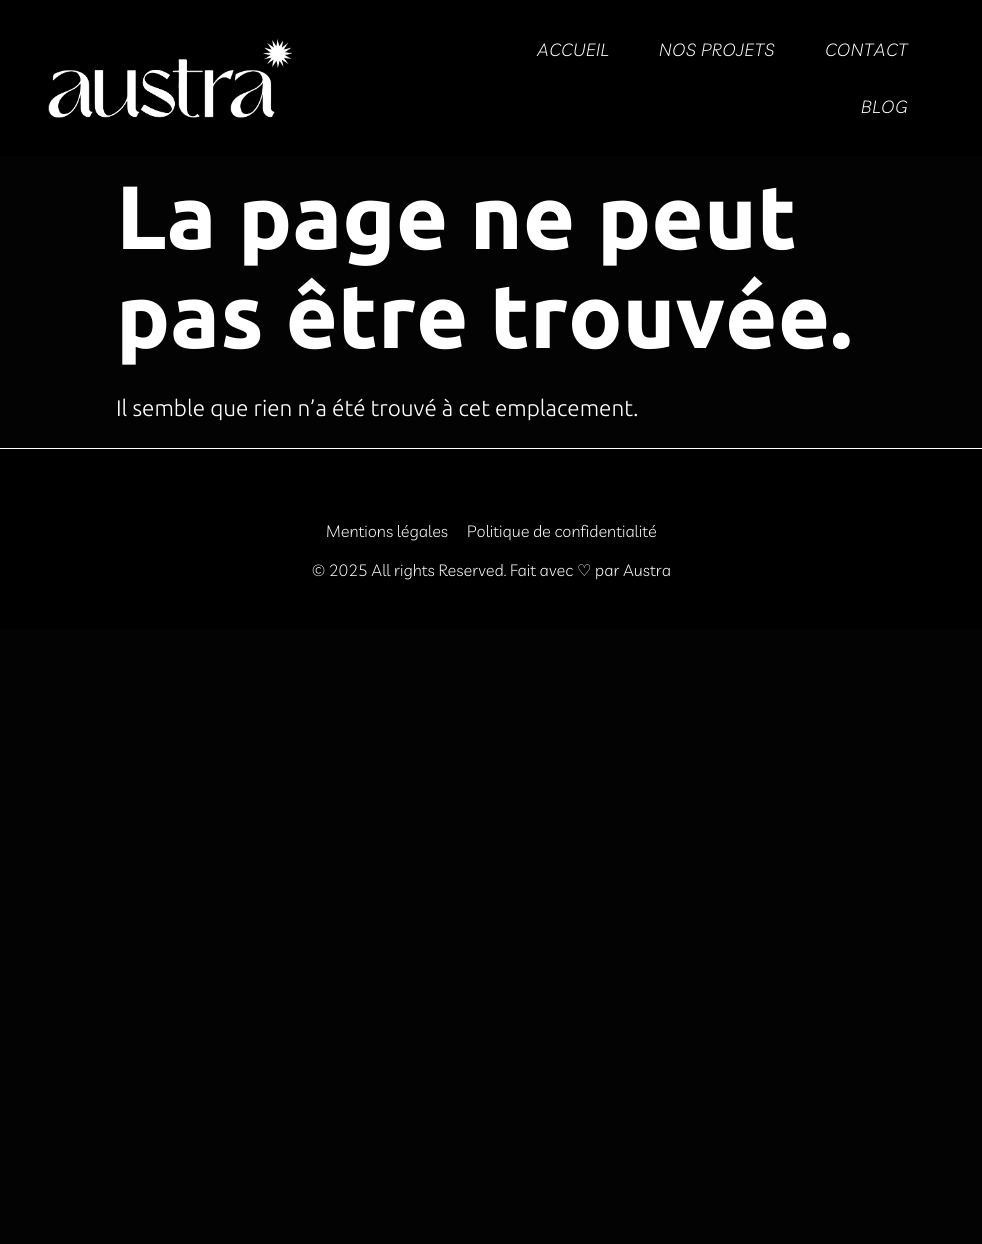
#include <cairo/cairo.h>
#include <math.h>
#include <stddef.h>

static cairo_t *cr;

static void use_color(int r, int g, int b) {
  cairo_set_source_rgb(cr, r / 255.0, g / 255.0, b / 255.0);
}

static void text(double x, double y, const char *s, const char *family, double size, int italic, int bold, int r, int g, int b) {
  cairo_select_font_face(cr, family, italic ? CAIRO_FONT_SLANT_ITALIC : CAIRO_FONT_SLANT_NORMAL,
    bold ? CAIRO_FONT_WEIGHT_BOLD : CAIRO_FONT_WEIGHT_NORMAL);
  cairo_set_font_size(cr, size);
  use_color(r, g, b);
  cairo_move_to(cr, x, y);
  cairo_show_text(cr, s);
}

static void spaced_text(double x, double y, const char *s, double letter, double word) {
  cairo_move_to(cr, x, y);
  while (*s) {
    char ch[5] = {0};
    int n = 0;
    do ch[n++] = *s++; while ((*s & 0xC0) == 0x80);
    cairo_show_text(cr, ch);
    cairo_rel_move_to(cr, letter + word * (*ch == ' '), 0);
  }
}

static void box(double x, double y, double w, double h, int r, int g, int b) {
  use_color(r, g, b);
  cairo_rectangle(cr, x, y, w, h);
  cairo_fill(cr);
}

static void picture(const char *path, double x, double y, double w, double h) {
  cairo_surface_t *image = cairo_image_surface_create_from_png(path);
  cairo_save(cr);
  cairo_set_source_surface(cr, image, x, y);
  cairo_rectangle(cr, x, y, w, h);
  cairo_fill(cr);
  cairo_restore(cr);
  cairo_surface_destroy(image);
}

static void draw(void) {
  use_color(3, 3, 3);
  cairo_paint(cr);
  box(0, 0, 982, 156, 0, 0, 0);
  picture("img_01.png", 48, 38, 245, 80);
  box(0, 449, 982, 180, 0, 0, 0);
  box(0, 448, 982, 1, 255, 255, 255);
  cairo_select_font_face(cr, "Livvic Light", CAIRO_FONT_SLANT_ITALIC, CAIRO_FONT_WEIGHT_NORMAL);
  cairo_set_font_size(cr, 17.5);
  spaced_text(537, 56, "ACCUEIL", 0.6, 0);
  spaced_text(659, 56, "NOS PROJETS", 0.6, 0);
  spaced_text(825, 56, "CONTACT", 0.6, 0);
  spaced_text(861, 113, "BLOG", 0.6, 0);
  text(116, 249, "La page ne peut", "Ubuntu", 90, 0, 1, 255, 255, 255);
  text(116, 348, "pas être trouvée.", "Ubuntu", 90, 0, 1, 255, 255, 255);
  text(116, 416, "Il semble que rien n’a été trouvé à cet emplacement.", "Ubuntu Light", 22.5, 0, 0, 255, 255, 255);
  text(326, 537, "Mentions légales", "Livvic Light", 16.25, 0, 0, 255, 255, 255);
  text(467, 537, "Politique de confidentialité", "Livvic Light", 16.25, 0, 0, 255, 255, 255);
  text(312, 576, "© 2025 All rights Reserved. Fait avec", "Livvic Light", 16.25, 0, 0, 255, 255, 255);
  text(577, 576, "♡", "DejaVu Sans", 16.25, 0, 0, 255, 255, 255);
  text(595, 576, "par Austra", "Livvic Light", 16.25, 0, 0, 255, 255, 255);
}

int main(void) {
  cairo_surface_t *surface = cairo_image_surface_create(CAIRO_FORMAT_RGB24, 982, 1244);
  cr = cairo_create(surface);
  cairo_font_options_t *options = cairo_font_options_create();
  cairo_font_options_set_hint_metrics(options, CAIRO_HINT_METRICS_OFF);
  cairo_font_options_set_hint_style(options, CAIRO_HINT_STYLE_NONE);
  cairo_set_font_options(cr, options);
  cairo_set_miter_limit(cr, 4);
  draw();
  cairo_surface_write_to_png(surface, "out.png");
  cairo_font_options_destroy(options);
  cairo_destroy(cr);
  cairo_surface_destroy(surface);
  return 0;
}
